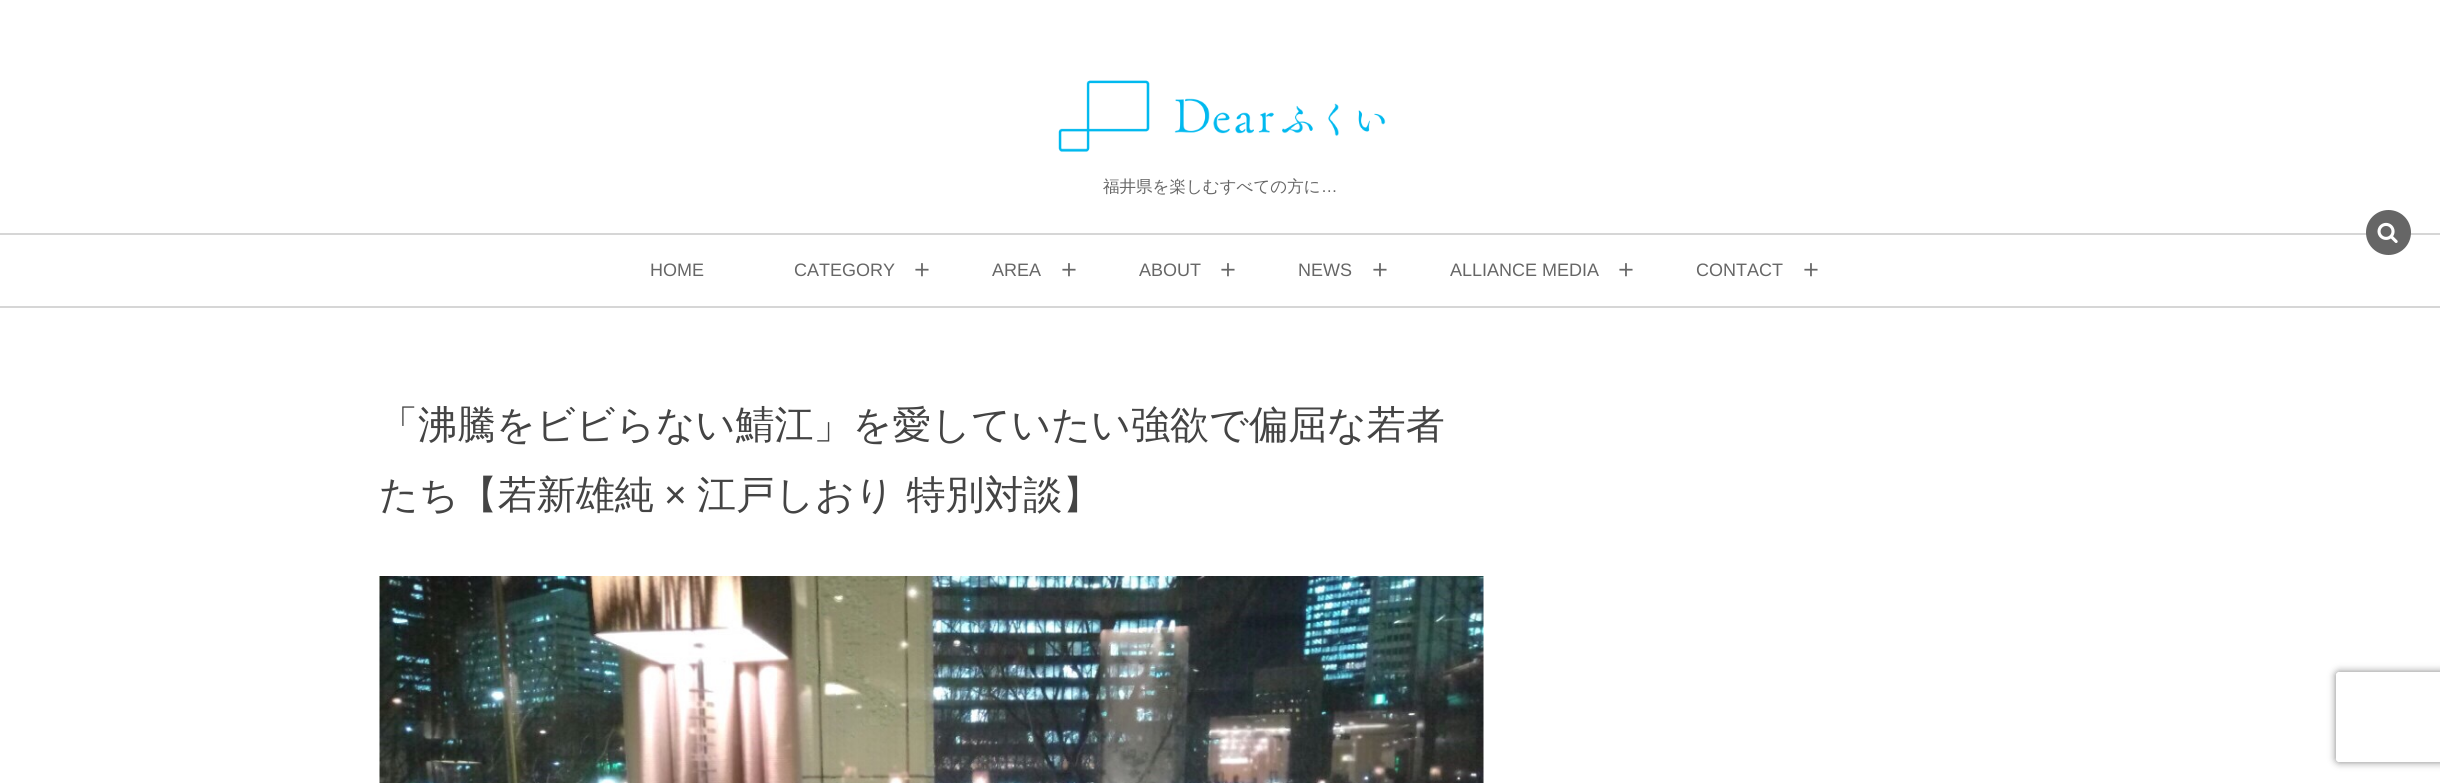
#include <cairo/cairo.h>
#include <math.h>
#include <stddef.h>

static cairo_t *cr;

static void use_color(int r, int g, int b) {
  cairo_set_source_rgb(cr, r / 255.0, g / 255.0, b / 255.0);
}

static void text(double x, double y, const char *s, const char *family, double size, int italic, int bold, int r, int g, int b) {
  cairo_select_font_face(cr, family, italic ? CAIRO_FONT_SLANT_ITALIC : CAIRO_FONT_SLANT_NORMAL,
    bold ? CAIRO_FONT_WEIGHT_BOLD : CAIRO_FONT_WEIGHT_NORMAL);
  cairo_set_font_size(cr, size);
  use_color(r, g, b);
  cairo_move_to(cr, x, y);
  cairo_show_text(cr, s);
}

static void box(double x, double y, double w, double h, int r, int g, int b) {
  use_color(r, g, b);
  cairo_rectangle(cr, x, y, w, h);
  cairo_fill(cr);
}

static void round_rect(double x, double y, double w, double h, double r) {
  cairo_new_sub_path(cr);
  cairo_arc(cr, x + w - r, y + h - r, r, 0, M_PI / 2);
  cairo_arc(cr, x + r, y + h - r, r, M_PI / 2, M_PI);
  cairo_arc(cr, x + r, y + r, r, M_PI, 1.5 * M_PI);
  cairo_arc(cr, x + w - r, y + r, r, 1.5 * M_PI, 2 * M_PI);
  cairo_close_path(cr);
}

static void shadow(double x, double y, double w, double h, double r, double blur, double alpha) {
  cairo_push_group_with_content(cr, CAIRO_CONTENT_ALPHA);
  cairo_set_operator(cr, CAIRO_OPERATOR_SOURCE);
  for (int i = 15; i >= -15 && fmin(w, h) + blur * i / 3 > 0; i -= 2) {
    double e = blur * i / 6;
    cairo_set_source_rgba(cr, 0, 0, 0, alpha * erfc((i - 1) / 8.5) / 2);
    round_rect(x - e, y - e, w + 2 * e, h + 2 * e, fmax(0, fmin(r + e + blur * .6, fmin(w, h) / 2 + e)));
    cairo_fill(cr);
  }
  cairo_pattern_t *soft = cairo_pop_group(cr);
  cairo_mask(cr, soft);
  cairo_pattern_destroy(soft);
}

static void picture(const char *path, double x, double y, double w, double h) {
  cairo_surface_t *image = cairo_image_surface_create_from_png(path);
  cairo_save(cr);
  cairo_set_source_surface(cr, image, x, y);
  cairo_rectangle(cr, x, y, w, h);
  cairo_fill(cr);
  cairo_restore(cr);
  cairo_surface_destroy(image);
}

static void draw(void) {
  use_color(255, 255, 255);
  cairo_paint(cr);
  picture("img_01.png", 1058, 80, 328, 72);
  box(0, 233, 2440, 2, 214, 214, 214);
  box(0, 306, 2440, 2, 214, 214, 214);
  picture("img_02.png", 379, 576, 1105, 207);
  use_color(102, 102, 102);
  cairo_arc(cr, 2388.5, 232.5, 22.5, 0, 2 * M_PI);
  cairo_fill(cr);
  picture("img_03.png", 2377, 222, 21, 21);
  cairo_save(cr);
  cairo_set_fill_rule(cr, CAIRO_FILL_RULE_EVEN_ODD);
  cairo_new_path(cr);
  cairo_move_to(cr, 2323, 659);
  cairo_line_to(cr, 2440, 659);
  cairo_line_to(cr, 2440, 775);
  cairo_line_to(cr, 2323, 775);
  cairo_close_path(cr);
  cairo_move_to(cr, 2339, 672);
  cairo_line_to(cr, 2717, 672);
  cairo_curve_to(cr, 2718.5, 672, 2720, 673.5, 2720, 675);
  cairo_line_to(cr, 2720, 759);
  cairo_curve_to(cr, 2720, 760.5, 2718.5, 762, 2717, 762);
  cairo_line_to(cr, 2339, 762);
  cairo_curve_to(cr, 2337.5, 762, 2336, 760.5, 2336, 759);
  cairo_line_to(cr, 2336, 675);
  cairo_curve_to(cr, 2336, 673.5, 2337.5, 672, 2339, 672);
  cairo_close_path(cr);
  cairo_clip(cr);
  use_color(128, 128, 128);
  shadow(2336, 672, 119, 90, 3, 4, 1);
  cairo_restore(cr);
  text(1103, 192, "福井県を楽しむすべての方に", "WenQuanYi Zen Hei Medium", 16.5, 0, 0, 102, 102, 102);
  text(1321, 192, "…", "Liberation Sans", 16.5, 0, 0, 102, 102, 102);
  text(650, 276, "HOME", "Liberation Sans", 18, 0, 0, 102, 102, 102);
  text(794, 276, "CATEGORY", "Liberation Sans", 18, 0, 0, 102, 102, 102);
  cairo_save(cr);
  cairo_translate(cr, 912, 269);
  cairo_rotate(cr, 45 * M_PI / 180);
  text(0, 0, "✕", "DejaVu Sans", 18, 0, 0, 102, 102, 102);
  cairo_restore(cr);
  text(992, 276, "AREA", "Liberation Sans", 18, 0, 0, 102, 102, 102);
  cairo_save(cr);
  cairo_translate(cr, 1059, 269);
  cairo_rotate(cr, 45 * M_PI / 180);
  text(0, 0, "✕", "DejaVu Sans", 18, 0, 0, 102, 102, 102);
  cairo_restore(cr);
  text(1139, 276, "ABOUT", "Liberation Sans", 18, 0, 0, 102, 102, 102);
  cairo_save(cr);
  cairo_translate(cr, 1218, 269);
  cairo_rotate(cr, 45 * M_PI / 180);
  text(0, 0, "✕", "DejaVu Sans", 18, 0, 0, 102, 102, 102);
  cairo_restore(cr);
  text(1298, 276, "NEWS", "Liberation Sans", 18, 0, 0, 102, 102, 102);
  cairo_save(cr);
  cairo_translate(cr, 1370, 269);
  cairo_rotate(cr, 45 * M_PI / 180);
  text(0, 0, "✕", "DejaVu Sans", 18, 0, 0, 102, 102, 102);
  cairo_restore(cr);
  text(1450, 276, "ALLIANCE MEDIA", "Liberation Sans", 18, 0, 0, 102, 102, 102);
  cairo_save(cr);
  cairo_translate(cr, 1616, 269);
  cairo_rotate(cr, 45 * M_PI / 180);
  text(0, 0, "✕", "DejaVu Sans", 18, 0, 0, 102, 102, 102);
  cairo_restore(cr);
  text(1696, 276, "CONTACT", "Liberation Sans", 18, 0, 0, 102, 102, 102);
  cairo_save(cr);
  cairo_translate(cr, 1801, 269);
  cairo_rotate(cr, 45 * M_PI / 180);
  text(0, 0, "✕", "DejaVu Sans", 18, 0, 0, 102, 102, 102);
  cairo_restore(cr);
  text(379, 438, "「沸騰をビビらない鯖江」を愛していたい強欲で偏屈な若者", "WenQuanYi Zen Hei Medium", 39, 0, 0, 68, 68, 68);
  text(379, 508, "たち【若新雄純", "WenQuanYi Zen Hei Medium", 39, 0, 0, 68, 68, 68);
  text(664, 508, "×", "Liberation Sans", 39, 0, 0, 68, 68, 68);
  text(697, 508, "江戸しおり 特別対談】", "WenQuanYi Zen Hei Medium", 39, 0, 0, 68, 68, 68);
}

int main(void) {
  cairo_surface_t *surface = cairo_image_surface_create(CAIRO_FORMAT_RGB24, 2440, 783);
  cr = cairo_create(surface);
  cairo_font_options_t *options = cairo_font_options_create();
  cairo_font_options_set_hint_metrics(options, CAIRO_HINT_METRICS_OFF);
  cairo_font_options_set_hint_style(options, CAIRO_HINT_STYLE_NONE);
  cairo_set_font_options(cr, options);
  cairo_set_miter_limit(cr, 4);
  draw();
  cairo_surface_write_to_png(surface, "out.png");
  cairo_font_options_destroy(options);
  cairo_destroy(cr);
  cairo_surface_destroy(surface);
  return 0;
}
